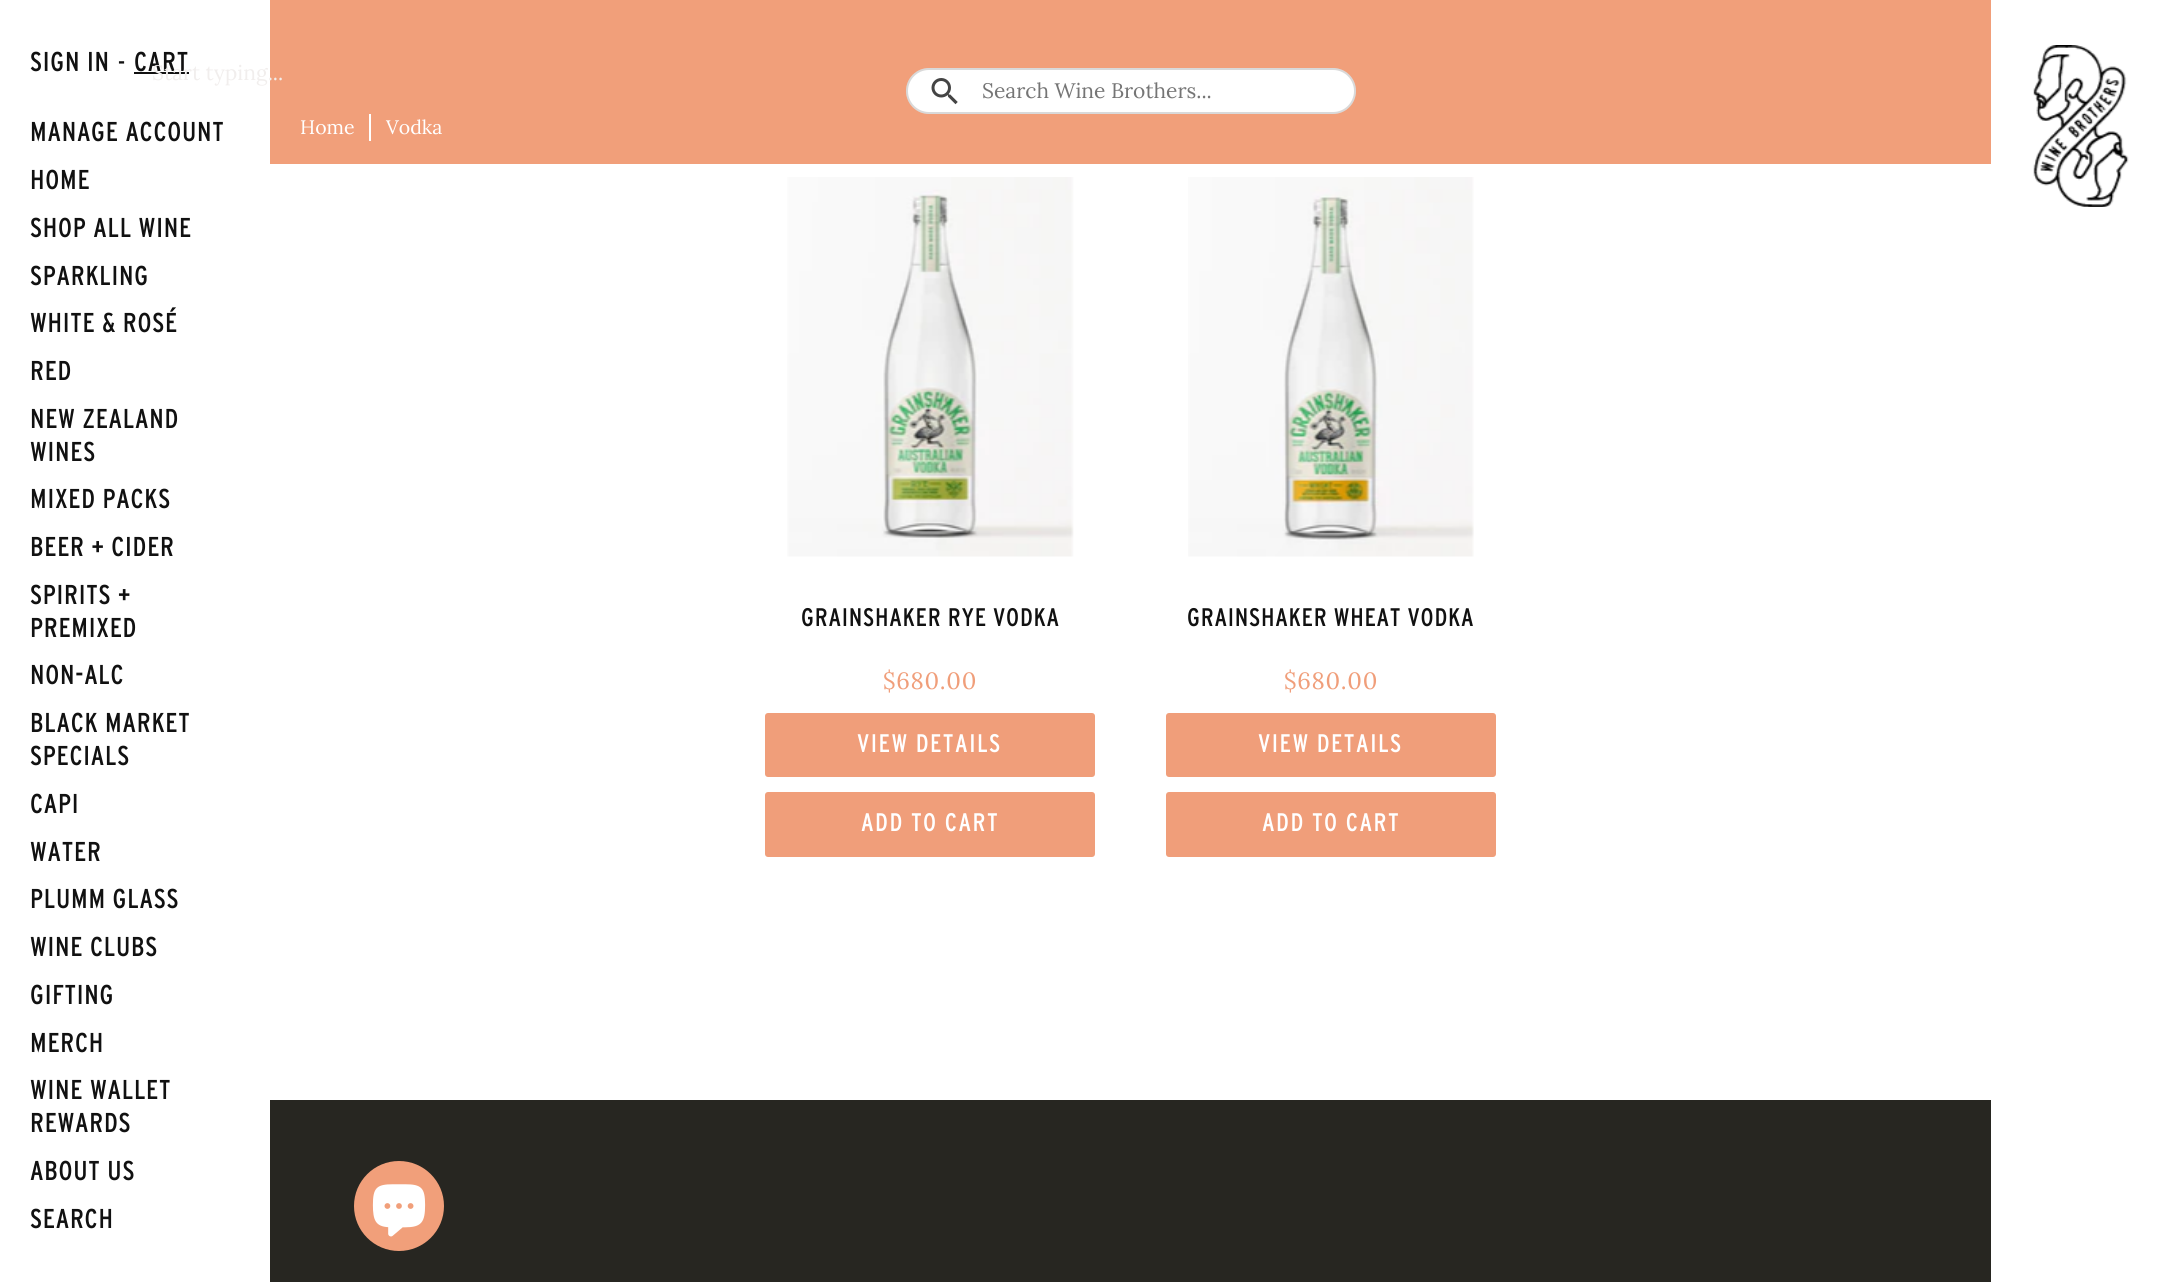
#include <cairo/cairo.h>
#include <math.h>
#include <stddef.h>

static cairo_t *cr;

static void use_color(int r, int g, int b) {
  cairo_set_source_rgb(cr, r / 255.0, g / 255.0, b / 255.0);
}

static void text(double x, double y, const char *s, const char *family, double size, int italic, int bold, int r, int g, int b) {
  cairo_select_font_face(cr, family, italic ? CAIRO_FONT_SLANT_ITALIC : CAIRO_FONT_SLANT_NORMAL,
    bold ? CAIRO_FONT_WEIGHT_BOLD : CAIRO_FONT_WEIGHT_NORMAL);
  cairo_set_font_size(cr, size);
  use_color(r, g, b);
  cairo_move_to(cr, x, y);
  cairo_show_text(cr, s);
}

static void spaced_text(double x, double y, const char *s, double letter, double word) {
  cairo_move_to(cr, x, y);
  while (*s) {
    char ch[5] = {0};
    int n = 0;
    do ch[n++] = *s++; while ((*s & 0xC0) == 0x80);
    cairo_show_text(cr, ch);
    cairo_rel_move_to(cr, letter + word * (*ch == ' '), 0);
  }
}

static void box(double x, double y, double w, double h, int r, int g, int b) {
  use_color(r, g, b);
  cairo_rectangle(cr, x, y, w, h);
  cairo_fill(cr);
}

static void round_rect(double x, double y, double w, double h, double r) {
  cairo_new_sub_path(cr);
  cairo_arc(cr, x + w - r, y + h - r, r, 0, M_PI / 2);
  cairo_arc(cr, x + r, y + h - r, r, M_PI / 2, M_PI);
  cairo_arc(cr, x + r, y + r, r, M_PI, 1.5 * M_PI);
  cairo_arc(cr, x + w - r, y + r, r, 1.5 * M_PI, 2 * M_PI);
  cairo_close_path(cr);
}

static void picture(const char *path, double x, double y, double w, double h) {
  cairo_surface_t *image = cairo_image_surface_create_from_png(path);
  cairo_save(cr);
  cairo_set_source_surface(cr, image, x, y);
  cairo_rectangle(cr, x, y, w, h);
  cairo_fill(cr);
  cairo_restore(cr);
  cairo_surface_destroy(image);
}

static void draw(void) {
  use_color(255, 255, 255);
  cairo_paint(cr);
  box(134, 72, 55, 2, 17, 17, 17);
  picture("img_01.png", 2033, 45, 96, 162);
  picture("img_02.png", 787, 177, 287, 380);
  use_color(240, 158, 122);
  round_rect(766.5, 714.5, 327, 61, 1.5);
  cairo_fill_preserve(cr);
  cairo_set_line_width(cr, 3);
  cairo_stroke(cr);
  round_rect(766.5, 793.5, 327, 62, 1.5);
  cairo_fill_preserve(cr);
  cairo_stroke(cr);
  picture("img_03.png", 1188, 177, 286, 380);
  round_rect(1167.5, 714.5, 327, 61, 1.5);
  cairo_fill_preserve(cr);
  cairo_stroke(cr);
  round_rect(1167.5, 793.5, 327, 62, 1.5);
  cairo_fill_preserve(cr);
  cairo_stroke(cr);
  box(270, 0, 1721, 164, 241, 159, 122);
  use_color(255, 255, 255);
  round_rect(906, 68, 450, 46, 23);
  cairo_fill(cr);
  round_rect(907, 69, 448, 44, 22);
  cairo_set_source_rgba(cr, 0, 0, 0, 0.15);
  cairo_set_line_width(cr, 2);
  cairo_stroke(cr);
  picture("img_04.png", 931, 78, 27, 27);
  box(369, 114, 2, 27, 255, 255, 255);
  box(270, 1100, 1721, 182, 39, 38, 33);
  use_color(241, 159, 122);
  cairo_arc(cr, 399, 1206, 45, 0, 2 * M_PI);
  cairo_fill(cr);
  picture("img_05.png", 372, 1184, 54, 53);
  cairo_select_font_face(cr, "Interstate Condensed", CAIRO_FONT_SLANT_NORMAL, CAIRO_FONT_WEIGHT_NORMAL);
  cairo_set_font_size(cr, 27.25);
  use_color(17, 17, 17);
  spaced_text(30, 71, "SIGN IN", 0.75, 0);
  cairo_set_font_size(cr, 23.5);
  spaced_text(118, 71, "-", 0.75, 0);
  cairo_set_font_size(cr, 27.25);
  spaced_text(134, 71, "CART", 0.75, 0);
  spaced_text(30, 141, "MANAGE ACCOUNT", 0.75, 0);
  spaced_text(30, 189, "HOME", 0.75, 0);
  spaced_text(30, 237, "SHOP ALL WINE", 0.75, 0);
  spaced_text(30, 285, "SPARKLING", 0.75, 0);
  spaced_text(30, 332, "WHITE & ROSÉ", 0.75, 0);
  spaced_text(30, 380, "RED", 0.75, 0);
  spaced_text(30, 428, "NEW ZEALAND", 0.75, 0);
  spaced_text(30, 461, "WINES", 0.75, 0);
  spaced_text(30, 508, "MIXED PACKS", 0.75, 0);
  spaced_text(30, 556, "BEER + CIDER", 0.75, 0);
  spaced_text(30, 604, "SPIRITS +", 0.75, 0);
  spaced_text(30, 637, "PREMIXED", 0.75, 0);
  spaced_text(30, 684, "NON-ALC", 0.75, 0);
  spaced_text(30, 732, "BLACK MARKET", 0.75, 0);
  spaced_text(30, 765, "SPECIALS", 0.75, 0);
  spaced_text(30, 813, "CAPI", 0.75, 0);
  spaced_text(30, 861, "WATER", 0.75, 0);
  spaced_text(30, 908, "PLUMM GLASS", 0.75, 0);
  spaced_text(30, 956, "WINE CLUBS", 0.75, 0);
  spaced_text(30, 1004, "GIFTING", 0.75, 0);
  spaced_text(30, 1052, "MERCH", 0.75, 0);
  spaced_text(30, 1099, "WINE WALLET", 0.75, 0);
  spaced_text(30, 1132, "REWARDS", 0.75, 0);
  spaced_text(30, 1180, "ABOUT US", 0.75, 0);
  spaced_text(30, 1228, "SEARCH", 0.75, 0);
  text(152, 80, "Start typing...", "Lora", 21, 0, 0, 241, 238, 237);
  cairo_select_font_face(cr, "Interstate Condensed", CAIRO_FONT_SLANT_NORMAL, CAIRO_FONT_WEIGHT_NORMAL);
  cairo_set_font_size(cr, 25.4);
  use_color(17, 17, 17);
  spaced_text(801, 626, "GRAINSHAKER RYE VODKA", 0.75, 0);
  cairo_select_font_face(cr, "Lora", CAIRO_FONT_SLANT_NORMAL, CAIRO_FONT_WEIGHT_NORMAL);
  cairo_set_font_size(cr, 23.5);
  use_color(240, 158, 122);
  spaced_text(883, 689, "$680.00", 0.75, 0);
  cairo_select_font_face(cr, "Interstate Condensed", CAIRO_FONT_SLANT_NORMAL, CAIRO_FONT_WEIGHT_NORMAL);
  cairo_set_font_size(cr, 25.4);
  use_color(255, 255, 255);
  spaced_text(857, 752, "VIEW DETAILS", 1.5, 0);
  spaced_text(861, 831, "ADD TO CART", 1.5, 0);
  use_color(17, 17, 17);
  spaced_text(1187, 626, "GRAINSHAKER WHEAT VODKA", 0.75, 0);
  cairo_select_font_face(cr, "Lora", CAIRO_FONT_SLANT_NORMAL, CAIRO_FONT_WEIGHT_NORMAL);
  cairo_set_font_size(cr, 23.5);
  use_color(240, 158, 122);
  spaced_text(1284, 689, "$680.00", 0.75, 0);
  cairo_select_font_face(cr, "Interstate Condensed", CAIRO_FONT_SLANT_NORMAL, CAIRO_FONT_WEIGHT_NORMAL);
  cairo_set_font_size(cr, 25.4);
  use_color(255, 255, 255);
  spaced_text(1258, 752, "VIEW DETAILS", 1.5, 0);
  spaced_text(1262, 831, "ADD TO CART", 1.5, 0);
  text(982, 98, "Search Wine Brothers...", "Lora", 21, 0, 0, 117, 117, 117);
  text(300, 134, "Home", "Lora", 19.5, 0, 0, 255, 255, 255);
  text(386, 134, "Vodka", "Lora", 19.5, 0, 0, 255, 255, 255);
}

int main(void) {
  cairo_surface_t *surface = cairo_image_surface_create(CAIRO_FORMAT_RGB24, 2170, 1282);
  cr = cairo_create(surface);
  cairo_font_options_t *options = cairo_font_options_create();
  cairo_font_options_set_hint_metrics(options, CAIRO_HINT_METRICS_OFF);
  cairo_font_options_set_hint_style(options, CAIRO_HINT_STYLE_NONE);
  cairo_set_font_options(cr, options);
  cairo_set_miter_limit(cr, 4);
  draw();
  cairo_surface_write_to_png(surface, "out.png");
  cairo_font_options_destroy(options);
  cairo_destroy(cr);
  cairo_surface_destroy(surface);
  return 0;
}
